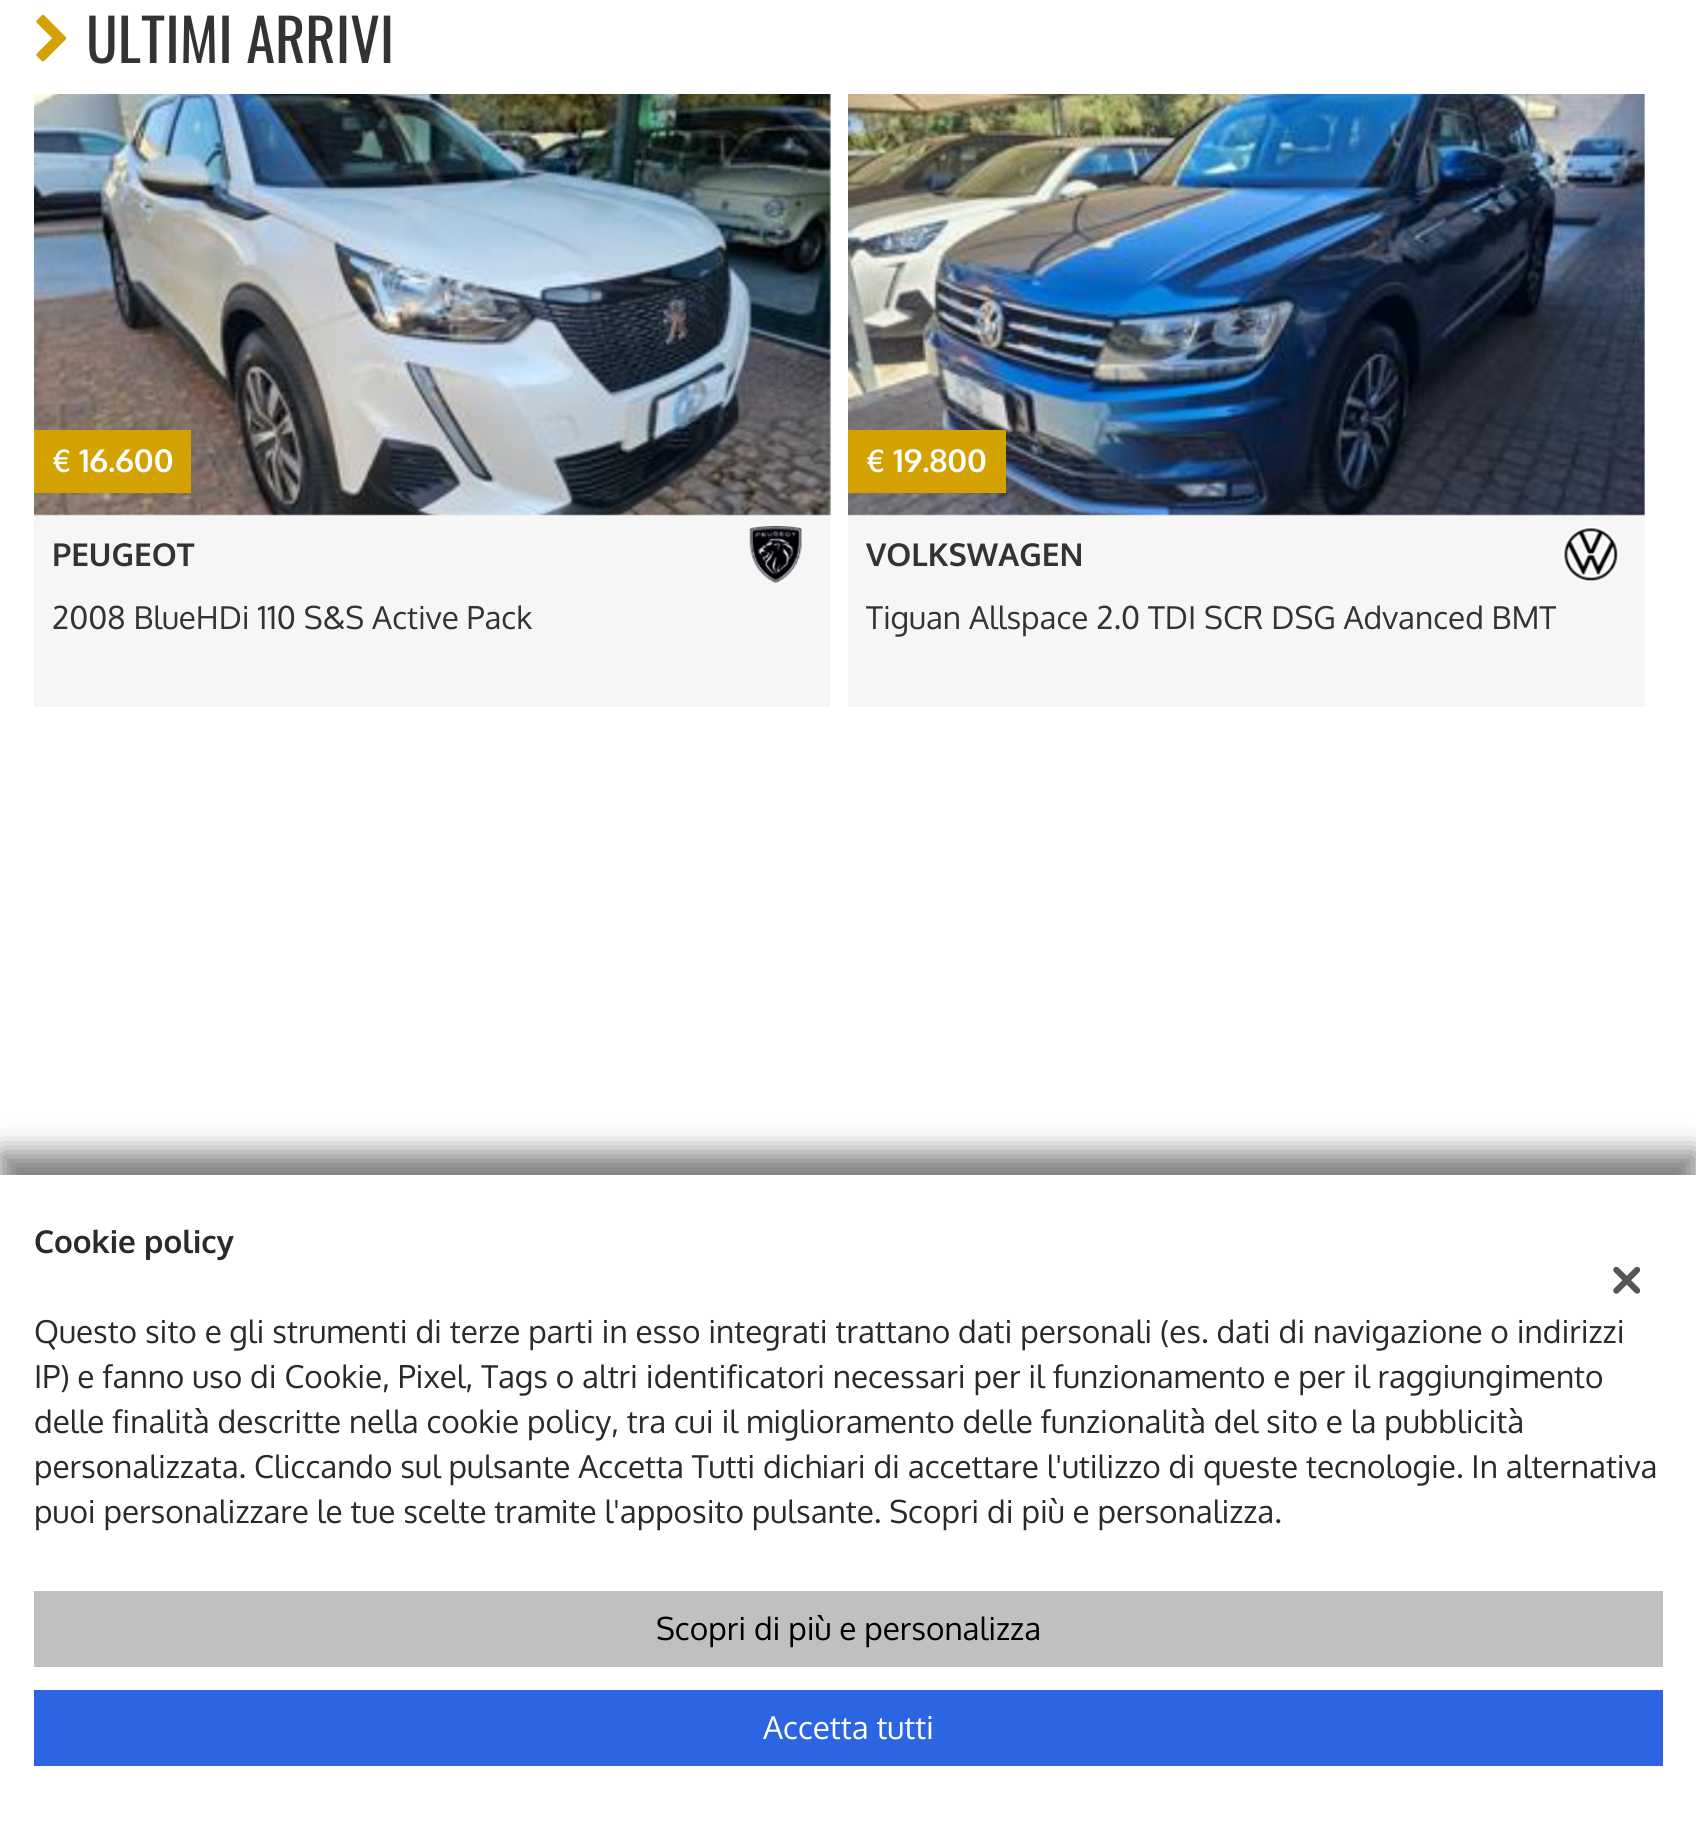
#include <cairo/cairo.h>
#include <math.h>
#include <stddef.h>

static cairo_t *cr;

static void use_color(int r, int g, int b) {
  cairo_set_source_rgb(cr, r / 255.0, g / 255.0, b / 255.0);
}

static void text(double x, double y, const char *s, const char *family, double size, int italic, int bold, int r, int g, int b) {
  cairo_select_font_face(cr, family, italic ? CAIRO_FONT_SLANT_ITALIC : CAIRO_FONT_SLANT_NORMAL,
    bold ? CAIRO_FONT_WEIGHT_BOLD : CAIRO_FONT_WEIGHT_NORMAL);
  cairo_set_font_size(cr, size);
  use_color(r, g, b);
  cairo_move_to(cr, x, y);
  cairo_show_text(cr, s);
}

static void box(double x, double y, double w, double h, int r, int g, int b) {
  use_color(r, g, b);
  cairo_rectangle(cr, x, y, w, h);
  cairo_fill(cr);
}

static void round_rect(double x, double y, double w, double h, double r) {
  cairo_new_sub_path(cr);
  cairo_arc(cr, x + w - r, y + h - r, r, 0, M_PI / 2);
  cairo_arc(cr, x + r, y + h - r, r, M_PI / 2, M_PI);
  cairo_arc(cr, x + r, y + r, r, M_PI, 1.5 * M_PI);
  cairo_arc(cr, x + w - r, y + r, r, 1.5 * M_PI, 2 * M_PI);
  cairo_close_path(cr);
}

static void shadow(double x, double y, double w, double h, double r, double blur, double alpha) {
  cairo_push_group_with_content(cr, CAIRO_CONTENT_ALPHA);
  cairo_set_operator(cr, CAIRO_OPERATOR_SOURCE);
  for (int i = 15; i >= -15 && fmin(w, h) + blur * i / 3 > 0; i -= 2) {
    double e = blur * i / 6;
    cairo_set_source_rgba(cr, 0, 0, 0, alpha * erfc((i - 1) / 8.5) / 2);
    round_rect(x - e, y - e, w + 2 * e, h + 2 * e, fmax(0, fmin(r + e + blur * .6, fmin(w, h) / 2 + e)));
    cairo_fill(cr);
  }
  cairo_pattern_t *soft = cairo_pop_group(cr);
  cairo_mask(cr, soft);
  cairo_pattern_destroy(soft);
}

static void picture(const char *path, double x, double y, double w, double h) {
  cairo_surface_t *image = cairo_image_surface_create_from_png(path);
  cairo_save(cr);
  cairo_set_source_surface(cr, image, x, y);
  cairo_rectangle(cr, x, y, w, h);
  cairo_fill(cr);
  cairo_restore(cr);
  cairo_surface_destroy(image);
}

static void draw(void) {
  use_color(255, 255, 255);
  cairo_paint(cr);
  picture("img_01.png", 36, 14, 31, 48);
  box(34, 95, 796, 612, 246, 246, 246);
  picture("img_02.png", 34, 94, 797, 422);
  box(34, 430, 157, 63, 211, 162, 0);
  picture("img_03.png", 749, 526, 53, 57);
  box(848, 95, 797, 612, 246, 246, 246);
  picture("img_04.png", 848, 94, 797, 422);
  box(848, 430, 158, 63, 211, 162, 0);
  picture("img_05.png", 1562, 526, 57, 56);
  use_color(0, 0, 0);
  shadow(0, 1152, 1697, 659, 0, 13.5, 0.5);
  box(0, 1175, 1696, 657, 255, 255, 255);
  box(34, 1591, 1629, 76, 192, 192, 192);
  box(34, 1690, 1629, 76, 44, 101, 225);
  picture("img_06.png", 1613, 1267, 27, 27);
  text(86, 63, "ULTIMI ARRIVI", "Oswald", 58.5, 0, 0, 51, 51, 51);
  text(52, 472, "€ 16.600", "Oxygen", 31.5, 0, 1, 255, 255, 255);
  text(52, 566, "PEUGEOT", "Oxygen", 31.5, 0, 1, 51, 51, 51);
  text(52, 629, "2008 BlueHDi 110 S&S Active Pack", "Oxygen", 31.5, 0, 0, 51, 51, 51);
  text(866, 472, "€ 19.800", "Oxygen", 31.5, 0, 1, 255, 255, 255);
  text(866, 566, "VOLKSWAGEN", "Oxygen", 31.5, 0, 1, 51, 51, 51);
  text(866, 629, "Tiguan Allspace 2.0 TDI SCR DSG Advanced BMT", "Oxygen", 31.5, 0, 0, 51, 51, 51);
  text(34, 1253, "Cookie policy", "Oxygen", 31.5, 0, 1, 43, 41, 41);
  text(34, 1343, "Questo sito e gli strumenti di terze parti in esso integrati trattano dati personali (es. dati di navigazione o indirizzi", "Oxygen", 31.5, 0, 0, 43, 41, 41);
  text(34, 1388, "IP) e fanno uso di Cookie, Pixel, Tags o altri identificatori necessari per il funzionamento e per il raggiungimento", "Oxygen", 31.5, 0, 0, 43, 41, 41);
  text(34, 1433, "delle finalità descritte nella cookie policy, tra cui il miglioramento delle funzionalità del sito e la pubblicità", "Oxygen", 31.5, 0, 0, 43, 41, 41);
  text(34, 1478, "personalizzata. Cliccando sul pulsante Accetta Tutti dichiari di accettare l'utilizzo di queste tecnologie. In alternativa", "Oxygen", 31.5, 0, 0, 43, 41, 41);
  text(34, 1523, "puoi personalizzare le tue scelte tramite l'apposito pulsante. Scopri di più e personalizza.", "Oxygen", 31.5, 0, 0, 43, 41, 41);
  text(656, 1640, "Scopri di più e personalizza", "Oxygen", 31.5, 0, 0, 0, 0, 0);
  text(763, 1739, "Accetta tutti", "Oxygen", 31.5, 0, 0, 255, 255, 255);
}

int main(void) {
  cairo_surface_t *surface = cairo_image_surface_create(CAIRO_FORMAT_RGB24, 1696, 1832);
  cr = cairo_create(surface);
  cairo_font_options_t *options = cairo_font_options_create();
  cairo_font_options_set_hint_metrics(options, CAIRO_HINT_METRICS_OFF);
  cairo_font_options_set_hint_style(options, CAIRO_HINT_STYLE_NONE);
  cairo_set_font_options(cr, options);
  cairo_set_miter_limit(cr, 4);
  draw();
  cairo_surface_write_to_png(surface, "out.png");
  cairo_font_options_destroy(options);
  cairo_destroy(cr);
  cairo_surface_destroy(surface);
  return 0;
}
